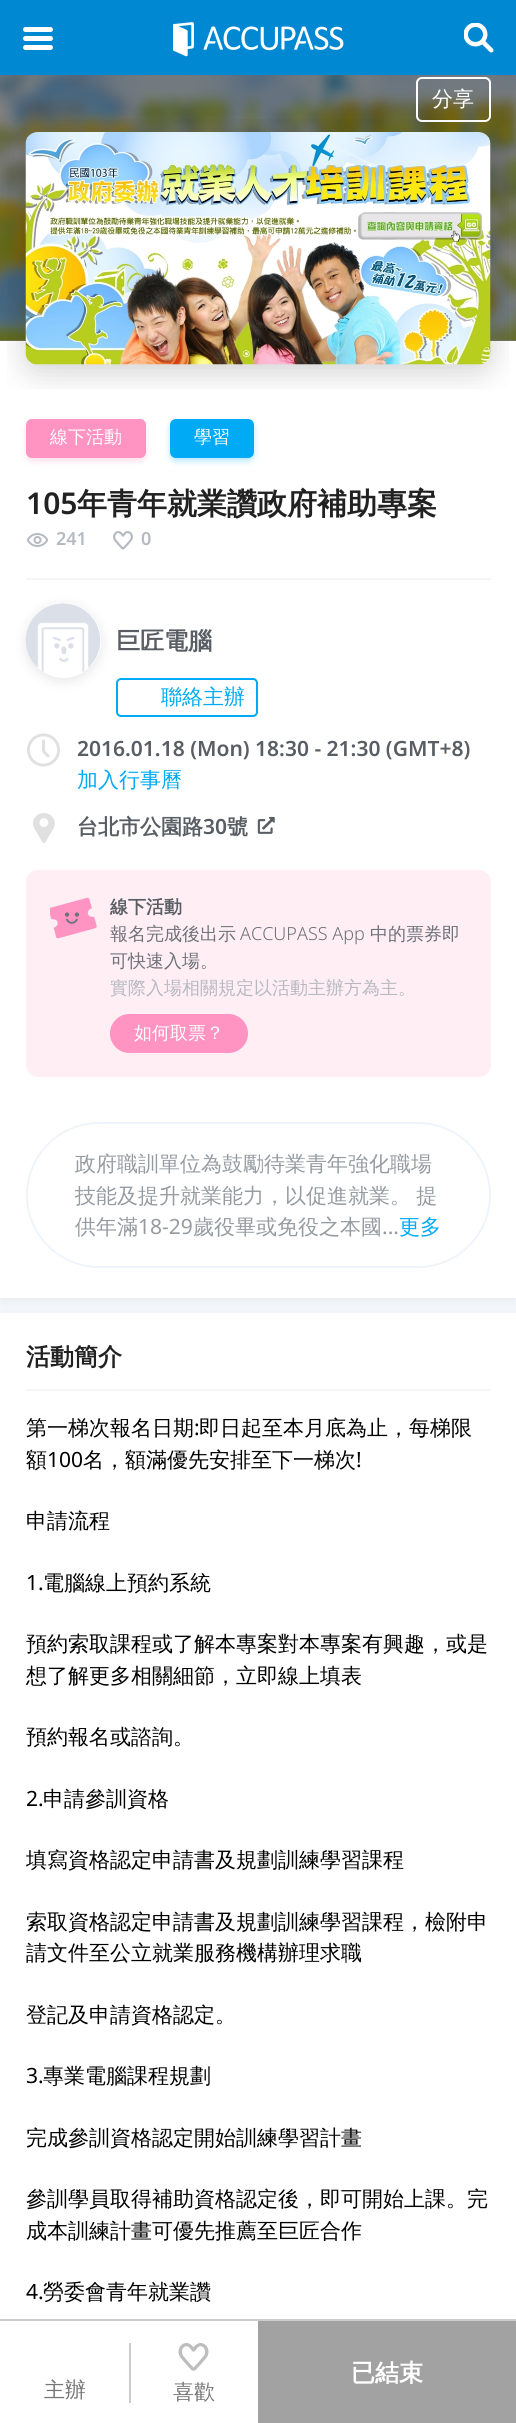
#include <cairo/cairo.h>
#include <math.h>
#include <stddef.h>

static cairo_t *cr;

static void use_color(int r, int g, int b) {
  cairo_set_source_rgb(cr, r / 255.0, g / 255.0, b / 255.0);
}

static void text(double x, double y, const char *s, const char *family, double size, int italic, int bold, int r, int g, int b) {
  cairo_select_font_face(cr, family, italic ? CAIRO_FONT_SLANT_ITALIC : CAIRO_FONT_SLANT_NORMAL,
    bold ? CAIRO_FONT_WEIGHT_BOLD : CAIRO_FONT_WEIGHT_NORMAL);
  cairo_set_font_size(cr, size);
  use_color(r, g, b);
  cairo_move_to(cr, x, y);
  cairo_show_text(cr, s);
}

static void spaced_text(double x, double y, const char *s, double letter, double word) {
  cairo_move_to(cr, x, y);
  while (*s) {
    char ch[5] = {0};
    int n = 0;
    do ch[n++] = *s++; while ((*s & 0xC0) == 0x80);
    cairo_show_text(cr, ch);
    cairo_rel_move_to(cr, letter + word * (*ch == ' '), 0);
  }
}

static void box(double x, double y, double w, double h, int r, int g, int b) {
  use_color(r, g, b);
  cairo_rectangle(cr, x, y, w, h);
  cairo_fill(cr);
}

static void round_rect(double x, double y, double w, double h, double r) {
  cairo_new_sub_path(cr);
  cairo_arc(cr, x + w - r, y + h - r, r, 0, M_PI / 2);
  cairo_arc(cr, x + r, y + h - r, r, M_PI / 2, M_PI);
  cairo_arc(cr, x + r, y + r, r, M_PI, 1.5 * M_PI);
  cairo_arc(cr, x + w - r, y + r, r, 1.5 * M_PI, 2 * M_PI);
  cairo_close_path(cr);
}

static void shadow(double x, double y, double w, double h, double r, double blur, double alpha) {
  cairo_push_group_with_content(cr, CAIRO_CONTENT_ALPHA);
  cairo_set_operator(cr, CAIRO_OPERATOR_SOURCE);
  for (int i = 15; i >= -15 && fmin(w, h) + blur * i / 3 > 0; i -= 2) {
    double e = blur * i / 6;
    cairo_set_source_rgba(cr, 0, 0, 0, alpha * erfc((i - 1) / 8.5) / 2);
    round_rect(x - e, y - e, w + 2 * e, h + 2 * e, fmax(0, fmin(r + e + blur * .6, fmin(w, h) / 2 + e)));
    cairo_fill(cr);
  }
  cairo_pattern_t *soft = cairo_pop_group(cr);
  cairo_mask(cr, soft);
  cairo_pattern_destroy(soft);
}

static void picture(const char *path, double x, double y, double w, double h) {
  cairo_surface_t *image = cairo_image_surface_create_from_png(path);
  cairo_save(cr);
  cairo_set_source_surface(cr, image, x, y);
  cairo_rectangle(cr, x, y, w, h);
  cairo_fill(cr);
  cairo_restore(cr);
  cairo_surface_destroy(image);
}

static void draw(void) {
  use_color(248, 251, 255);
  cairo_paint(cr);
  box(0, 0, 516, 75, 0, 136, 210);
  picture("img_01.png", 173, 22, 171, 35);
  use_color(255, 255, 255);
  round_rect(23, 27, 30, 5, 2.5);
  cairo_fill(cr);
  round_rect(23, 36, 30, 5, 2.5);
  cairo_fill(cr);
  round_rect(23, 45, 30, 5, 2.5);
  cairo_fill(cr);
  picture("img_02.png", 464, 23, 30, 30);
  box(0, 75, 516, 266, 128, 128, 128);
  picture("img_03.png", 0, 75, 516, 266);
  round_rect(417, 78, 73, 43, 5);
  use_color(255, 255, 255);
  cairo_stroke(cr);
  use_color(107, 107, 107);
  shadow(0, 368, 516, 933, 0, 7, 0.14);
  box(0, 341, 516, 957, 255, 255, 255);
  use_color(0, 0, 0);
  shadow(26, 138, 465, 233, 12, 12, 0.1);
  picture("img_04.png", 7, 119, 502, 270);
  use_color(255, 147, 194);
  shadow(26, 422, 120, 39, 6, 3, 0.3);
  use_color(255, 147, 194);
  round_rect(26, 419, 120, 39, 6);
  cairo_fill(cr);
  use_color(0, 170, 245);
  shadow(170, 422, 84, 39, 6, 3, 0.3);
  use_color(0, 170, 245);
  round_rect(170, 419, 84, 39, 6);
  cairo_fill(cr);
  picture("img_05.png", 26, 533, 22, 14);
  picture("img_06.png", 113, 531, 20, 19);
  box(26, 578, 465, 2, 245, 245, 245);
  round_rect(117, 679, 140, 37, 4);
  use_color(0, 170, 245);
  cairo_stroke(cr);
  cairo_save(cr);
  cairo_set_fill_rule(cr, CAIRO_FILL_RULE_EVEN_ODD);
  cairo_new_path(cr);
  cairo_move_to(cr, 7, 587);
  cairo_line_to(cr, 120, 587);
  cairo_line_to(cr, 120, 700);
  cairo_line_to(cr, 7, 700);
  cairo_close_path(cr);
  cairo_move_to(cr, 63.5, 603);
  cairo_curve_to(cr, 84, 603, 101, 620, 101, 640.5);
  cairo_curve_to(cr, 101, 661, 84, 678, 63.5, 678);
  cairo_curve_to(cr, 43, 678, 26, 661, 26, 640.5);
  cairo_curve_to(cr, 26, 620, 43, 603, 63.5, 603);
  cairo_close_path(cr);
  cairo_clip(cr);
  use_color(0, 0, 0);
  shadow(26, 606, 75, 75, 37.5, 6, 0.1);
  cairo_restore(cr);
  picture("img_07.png", 25, 603, 76, 69);
  picture("img_08.png", 27, 733, 33, 34);
  picture("img_09.png", 33, 813, 22, 30);
  picture("img_10.png", 257, 816, 18, 18);
  use_color(255, 238, 243);
  round_rect(26, 870, 465, 207, 12);
  cairo_fill(cr);
  picture("img_11.png", 50, 897, 47, 42);
  use_color(255, 147, 194);
  round_rect(110, 1014, 138, 39, 19.5);
  cairo_fill(cr);
  round_rect(27, 1123, 463, 144, 72);
  use_color(239, 244, 251);
  cairo_stroke(cr);
  use_color(107, 107, 107);
  shadow(0, 1316, 516, 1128, 0, 7, 0.14);
  box(0, 1313, 516, 1006, 255, 255, 255);
  box(26, 1389, 465, 2, 245, 245, 245);
  box(0, 2321, 258, 102, 255, 255, 255);
  box(0, 2319, 516, 2, 204, 204, 204);
  box(258, 2321, 258, 102, 162, 162, 162);
  box(129, 2343, 2, 60, 204, 204, 204);
  picture("img_12.png", 178, 2343, 31, 28);
  text(432, 106, "分享", "WenQuanYi Zen Hei Medium", 21, 0, 0, 255, 255, 255);
  text(50, 443, "線下活動", "WenQuanYi Zen Hei Medium", 18, 0, 0, 255, 255, 255);
  text(194, 443, "學習", "WenQuanYi Zen Hei Medium", 18, 0, 0, 255, 255, 255);
  text(26, 514, "105", "Noto Sans SemiBold", 30, 0, 0, 33, 33, 33);
  text(77, 514, "年青年就業讚政府補助專案", "WenQuanYi Zen Hei", 30, 0, 1, 33, 33, 33);
  text(56, 545, "241", "Noto Sans SemiBold", 18, 0, 0, 181, 186, 193);
  text(141, 545, "0", "Noto Sans SemiBold", 18, 0, 0, 181, 186, 193);
  text(116, 649, "巨匠電腦", "WenQuanYi Zen Hei", 24, 0, 1, 89, 94, 100);
  text(161, 704, "聯絡主辦", "WenQuanYi Zen Hei Medium", 21, 0, 0, 0, 170, 245);
  text(77, 756, "2016.01.18 (Mon) 18:30 - 21:30 (GMT+8)", "Noto Sans SemiBold", 21, 0, 0, 89, 94, 100);
  text(77, 787, "加入行事曆", "WenQuanYi Zen Hei Medium", 21, 0, 0, 0, 170, 245);
  text(77, 834, "台北市公園路", "WenQuanYi Zen Hei", 21, 0, 1, 89, 94, 100);
  text(203, 834, "30", "Noto Sans SemiBold", 21, 0, 0, 89, 94, 100);
  text(227, 834, "號", "WenQuanYi Zen Hei", 21, 0, 1, 89, 94, 100);
  text(110, 913, "線下活動", "WenQuanYi Zen Hei", 18, 0, 1, 89, 94, 100);
  text(110, 940, "報名完成後出示", "WenQuanYi Zen Hei Medium", 18, 0, 0, 109, 114, 120);
  text(240, 940, "ACCUPASS App", "Noto Sans Light", 18, 0, 0, 109, 114, 120);
  text(370, 940, "中的票券即", "WenQuanYi Zen Hei Medium", 18, 0, 0, 109, 114, 120);
  text(110, 967, "可快速入場。", "WenQuanYi Zen Hei Medium", 18, 0, 0, 109, 114, 120);
  text(110, 994, "實際入場相關規定以活動主辦方為主。", "WenQuanYi Zen Hei Medium", 18, 0, 0, 181, 186, 193);
  text(134, 1039, "如何取票？", "WenQuanYi Zen Hei Medium", 18, 0, 0, 255, 255, 255);
  text(75, 1171, "政府職訓單位為鼓勵待業青年強化職場", "WenQuanYi Zen Hei Medium", 21, 0, 0, 149, 155, 161);
  spaced_text(75, 1203, "技能及提升就業能力，以促進就業。 提", 0, -1);
  text(75, 1234, "供年滿", "WenQuanYi Zen Hei Medium", 21, 0, 0, 149, 155, 161);
  text(138, 1234, "18-29", "Noto Sans", 21, 0, 0, 149, 155, 161);
  text(193, 1234, "歲役畢或免役之本國", "WenQuanYi Zen Hei Medium", 21, 0, 0, 149, 155, 161);
  text(382, 1234, "...", "Noto Sans", 21, 0, 0, 149, 155, 161);
  text(399, 1234, "更多", "WenQuanYi Zen Hei Medium", 21, 0, 0, 0, 170, 245);
  text(26, 1365, "活動簡介", "WenQuanYi Zen Hei", 24, 0, 1, 33, 33, 33);
  text(26, 1435, "第一梯次報名日期", "WenQuanYi Zen Hei Medium", 21, 0, 0, 0, 0, 0);
  text(194, 1435, ":", "Noto Sans", 21, 0, 0, 0, 0, 0);
  text(199, 1435, "即日起至本月底為止，每梯限", "WenQuanYi Zen Hei Medium", 21, 0, 0, 0, 0, 0);
  text(26, 1467, "額", "WenQuanYi Zen Hei Medium", 21, 0, 0, 0, 0, 0);
  text(47, 1467, "100", "Noto Sans", 21, 0, 0, 0, 0, 0);
  text(83, 1467, "名，額滿優先安排至下一梯次", "WenQuanYi Zen Hei Medium", 21, 0, 0, 0, 0, 0);
  text(356, 1467, "!", "Noto Sans", 21, 0, 0, 0, 0, 0);
  text(26, 1528, "申請流程", "WenQuanYi Zen Hei Medium", 21, 0, 0, 0, 0, 0);
  text(26, 1590, "1.", "Noto Sans", 21, 0, 0, 0, 0, 0);
  text(43, 1590, "電腦線上預約系統", "WenQuanYi Zen Hei Medium", 21, 0, 0, 0, 0, 0);
  text(26, 1651, "預約索取課程或了解本專案對本專案有興趣，或是", "WenQuanYi Zen Hei Medium", 21, 0, 0, 0, 0, 0);
  text(26, 1683, "想了解更多相關細節，立即線上填表", "WenQuanYi Zen Hei Medium", 21, 0, 0, 0, 0, 0);
  text(26, 1744, "預約報名或諮詢。", "WenQuanYi Zen Hei Medium", 21, 0, 0, 0, 0, 0);
  text(26, 1806, "2.", "Noto Sans", 21, 0, 0, 0, 0, 0);
  text(43, 1806, "申請參訓資格", "WenQuanYi Zen Hei Medium", 21, 0, 0, 0, 0, 0);
  text(26, 1867, "填寫資格認定申請書及規劃訓練學習課程", "WenQuanYi Zen Hei Medium", 21, 0, 0, 0, 0, 0);
  text(26, 1929, "索取資格認定申請書及規劃訓練學習課程，檢附申", "WenQuanYi Zen Hei Medium", 21, 0, 0, 0, 0, 0);
  text(26, 1960, "請文件至公立就業服務機構辦理求職", "WenQuanYi Zen Hei Medium", 21, 0, 0, 0, 0, 0);
  text(26, 2022, "登記及申請資格認定。", "WenQuanYi Zen Hei Medium", 21, 0, 0, 0, 0, 0);
  text(26, 2083, "3.", "Noto Sans", 21, 0, 0, 0, 0, 0);
  text(43, 2083, "專業電腦課程規劃", "WenQuanYi Zen Hei Medium", 21, 0, 0, 0, 0, 0);
  text(26, 2145, "完成參訓資格認定開始訓練學習計畫", "WenQuanYi Zen Hei Medium", 21, 0, 0, 0, 0, 0);
  text(26, 2206, "參訓學員取得補助資格認定後，即可開始上課。完", "WenQuanYi Zen Hei Medium", 21, 0, 0, 0, 0, 0);
  text(26, 2238, "成本訓練計畫可優先推薦至巨匠合作", "WenQuanYi Zen Hei Medium", 21, 0, 0, 0, 0, 0);
  text(26, 2299, "4.", "Noto Sans", 21, 0, 0, 0, 0, 0);
  text(43, 2299, "勞委會青年就業讚", "WenQuanYi Zen Hei Medium", 21, 0, 0, 0, 0, 0);
  text(351, 2381, "已結束", "WenQuanYi Zen Hei", 24, 0, 1, 255, 255, 255);
  text(44, 2397, "主辦", "WenQuanYi Zen Hei Medium", 21, 0, 0, 117, 117, 117);
  text(173, 2399, "喜歡", "WenQuanYi Zen Hei Medium", 21, 0, 0, 117, 117, 117);
}

int main(void) {
  cairo_surface_t *surface = cairo_image_surface_create(CAIRO_FORMAT_RGB24, 516, 2423);
  cr = cairo_create(surface);
  cairo_font_options_t *options = cairo_font_options_create();
  cairo_font_options_set_hint_metrics(options, CAIRO_HINT_METRICS_OFF);
  cairo_font_options_set_hint_style(options, CAIRO_HINT_STYLE_NONE);
  cairo_set_font_options(cr, options);
  cairo_set_miter_limit(cr, 4);
  draw();
  cairo_surface_write_to_png(surface, "out.png");
  cairo_font_options_destroy(options);
  cairo_destroy(cr);
  cairo_surface_destroy(surface);
  return 0;
}
